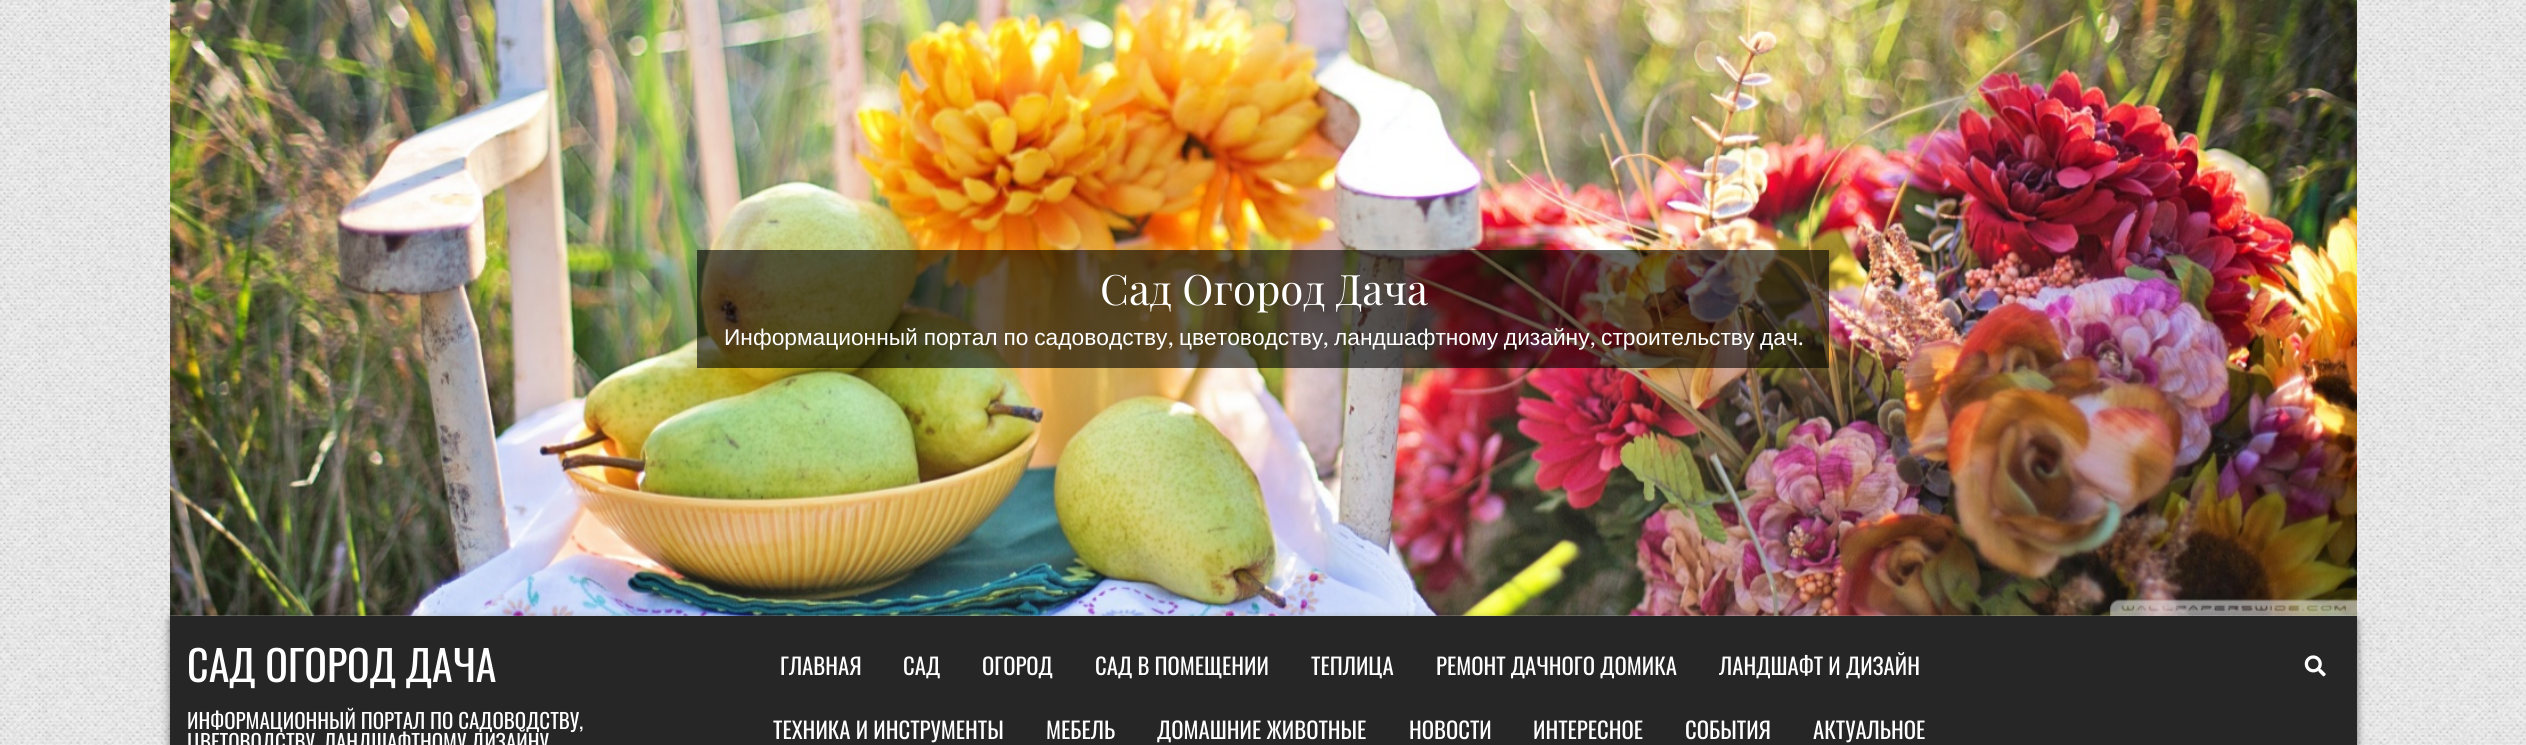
#include <cairo/cairo.h>
#include <math.h>
#include <stddef.h>

static cairo_t *cr;

static void use_color(int r, int g, int b) {
  cairo_set_source_rgb(cr, r / 255.0, g / 255.0, b / 255.0);
}

static void text(double x, double y, const char *s, const char *family, double size, int italic, int bold, int r, int g, int b) {
  cairo_select_font_face(cr, family, italic ? CAIRO_FONT_SLANT_ITALIC : CAIRO_FONT_SLANT_NORMAL,
    bold ? CAIRO_FONT_WEIGHT_BOLD : CAIRO_FONT_WEIGHT_NORMAL);
  cairo_set_font_size(cr, size);
  use_color(r, g, b);
  cairo_move_to(cr, x, y);
  cairo_show_text(cr, s);
}

static void spaced_text(double x, double y, const char *s, double letter, double word) {
  cairo_move_to(cr, x, y);
  while (*s) {
    char ch[5] = {0};
    int n = 0;
    do ch[n++] = *s++; while ((*s & 0xC0) == 0x80);
    cairo_show_text(cr, ch);
    cairo_rel_move_to(cr, letter + word * (*ch == ' '), 0);
  }
}

static void box(double x, double y, double w, double h, int r, int g, int b) {
  use_color(r, g, b);
  cairo_rectangle(cr, x, y, w, h);
  cairo_fill(cr);
}

static void round_rect(double x, double y, double w, double h, double r) {
  cairo_new_sub_path(cr);
  cairo_arc(cr, x + w - r, y + h - r, r, 0, M_PI / 2);
  cairo_arc(cr, x + r, y + h - r, r, M_PI / 2, M_PI);
  cairo_arc(cr, x + r, y + r, r, M_PI, 1.5 * M_PI);
  cairo_arc(cr, x + w - r, y + r, r, 1.5 * M_PI, 2 * M_PI);
  cairo_close_path(cr);
}

static void shadow(double x, double y, double w, double h, double r, double blur, double alpha) {
  cairo_push_group_with_content(cr, CAIRO_CONTENT_ALPHA);
  cairo_set_operator(cr, CAIRO_OPERATOR_SOURCE);
  for (int i = 15; i >= -15 && fmin(w, h) + blur * i / 3 > 0; i -= 2) {
    double e = blur * i / 6;
    cairo_set_source_rgba(cr, 0, 0, 0, alpha * erfc((i - 1) / 8.5) / 2);
    round_rect(x - e, y - e, w + 2 * e, h + 2 * e, fmax(0, fmin(r + e + blur * .6, fmin(w, h) / 2 + e)));
    cairo_fill(cr);
  }
  cairo_pattern_t *soft = cairo_pop_group(cr);
  cairo_mask(cr, soft);
  cairo_pattern_destroy(soft);
}

static void picture(const char *path, double x, double y, double w, double h) {
  cairo_surface_t *image = cairo_image_surface_create_from_png(path);
  cairo_save(cr);
  cairo_set_source_surface(cr, image, x, y);
  cairo_rectangle(cr, x, y, w, h);
  cairo_fill(cr);
  cairo_restore(cr);
  cairo_surface_destroy(image);
}

static void draw(void) {
  use_color(255, 255, 255);
  cairo_paint(cr);
  picture("img_01.png", 0, 0, 2526, 745);
  picture("img_02.png", 170, 0, 2187, 616);
  cairo_set_source_rgba(cr, 0, 0, 0, 0.6);
  cairo_rectangle(cr, 697, 250, 1132, 118);
  cairo_fill(cr);
  use_color(0, 0, 0);
  shadow(170, 620, 2187, 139, 0, 4.5, 0.5);
  box(170, 616, 2187, 129, 38, 38, 38);
  picture("img_03.png", 2304, 655, 22, 22);
  text(1100, 305, "Сад Огород Дача", "Playfair Display", 42, 0, 0, 255, 255, 255);
  cairo_select_font_face(cr, "Liberation Sans", CAIRO_FONT_SLANT_NORMAL, CAIRO_FONT_WEIGHT_NORMAL);
  cairo_set_font_size(cr, 22.75);
  spaced_text(724, 345, "Информационный портал по садоводству", 0, -0.5);
  text(1168, 345, ",", "Domine", 22.75, 0, 0, 255, 255, 255);
  text(1179, 345, "цветоводству", "Liberation Sans", 22.75, 0, 0, 255, 255, 255);
  text(1323, 345, ",", "Domine", 22.75, 0, 0, 255, 255, 255);
  cairo_select_font_face(cr, "Liberation Sans", CAIRO_FONT_SLANT_NORMAL, CAIRO_FONT_WEIGHT_NORMAL);
  spaced_text(1334, 345, "ландшафтному дизайну", 0, -0.5);
  text(1590, 345, ",", "Domine", 22.75, 0, 0, 255, 255, 255);
  cairo_select_font_face(cr, "Liberation Sans", CAIRO_FONT_SLANT_NORMAL, CAIRO_FONT_WEIGHT_NORMAL);
  spaced_text(1601, 345, "строительству дач", 0, -0.5);
  text(1798, 345, ".", "Domine", 22.75, 0, 0, 255, 255, 255);
  text(187, 682, "САД ОГОРОД ДАЧА", "Oswald", 42, 0, 0, 255, 255, 255);
  text(187, 729, "ИНФОРМАЦИОННЫЙ ПОРТАЛ ПО САДОВОДСТВУ,", "Oswald", 21, 0, 0, 255, 255, 255);
  text(187, 750, "ЦВЕТОВОДСТВУ, ЛАНДШАФТНОМУ ДИЗАЙНУ", "Oswald", 21, 0, 0, 255, 255, 255);
  text(780, 675, "ГЛАВНАЯ", "Oswald", 22.75, 0, 0, 255, 255, 255);
  text(903, 675, "САД", "Oswald", 22.75, 0, 0, 255, 255, 255);
  text(982, 675, "ОГОРОД", "Oswald", 22.75, 0, 0, 255, 255, 255);
  text(1095, 675, "САД В ПОМЕЩЕНИИ", "Oswald", 22.75, 0, 0, 255, 255, 255);
  text(1311, 675, "ТЕПЛИЦА", "Oswald", 22.75, 0, 0, 255, 255, 255);
  text(1436, 675, "РЕМОНТ ДАЧНОГО ДОМИКА", "Oswald", 22.75, 0, 0, 255, 255, 255);
  text(1719, 675, "ЛАНДШАФТ И ДИЗАЙН", "Oswald", 22.75, 0, 0, 255, 255, 255);
  text(773, 739, "ТЕХНИКА И ИНСТРУМЕНТЫ", "Oswald", 22.75, 0, 0, 255, 255, 255);
  text(1046, 739, "МЕБЕЛЬ", "Oswald", 22.75, 0, 0, 255, 255, 255);
  text(1157, 739, "ДОМАШНИЕ ЖИВОТНЫЕ", "Oswald", 22.75, 0, 0, 255, 255, 255);
  text(1409, 739, "НОВОСТИ", "Oswald", 22.75, 0, 0, 255, 255, 255);
  text(1533, 739, "ИНТЕРЕСНОЕ", "Oswald", 22.75, 0, 0, 255, 255, 255);
  text(1685, 739, "СОБЫТИЯ", "Oswald", 22.75, 0, 0, 255, 255, 255);
  text(1813, 739, "АКТУАЛЬНОЕ", "Oswald", 22.75, 0, 0, 255, 255, 255);
}

int main(void) {
  cairo_surface_t *surface = cairo_image_surface_create(CAIRO_FORMAT_RGB24, 2526, 745);
  cr = cairo_create(surface);
  cairo_font_options_t *options = cairo_font_options_create();
  cairo_font_options_set_hint_metrics(options, CAIRO_HINT_METRICS_OFF);
  cairo_font_options_set_hint_style(options, CAIRO_HINT_STYLE_NONE);
  cairo_set_font_options(cr, options);
  cairo_set_miter_limit(cr, 4);
  draw();
  cairo_surface_write_to_png(surface, "out.png");
  cairo_font_options_destroy(options);
  cairo_destroy(cr);
  cairo_surface_destroy(surface);
  return 0;
}
